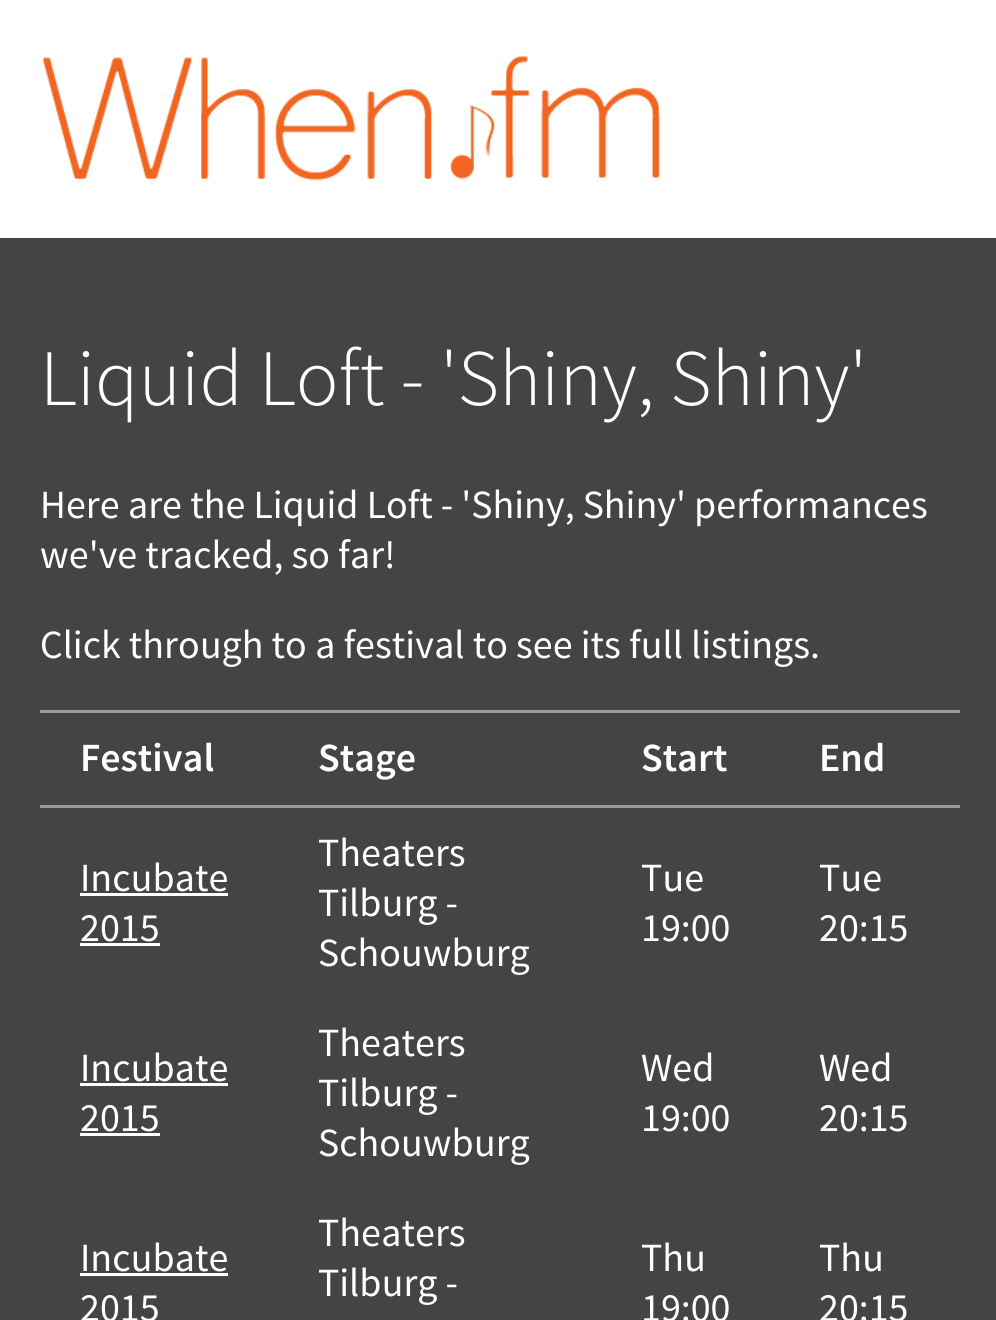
#include <cairo/cairo.h>
#include <math.h>
#include <stddef.h>

static cairo_t *cr;

static void use_color(int r, int g, int b) {
  cairo_set_source_rgb(cr, r / 255.0, g / 255.0, b / 255.0);
}

static void text(double x, double y, const char *s, const char *family, double size, int italic, int bold, int r, int g, int b) {
  cairo_select_font_face(cr, family, italic ? CAIRO_FONT_SLANT_ITALIC : CAIRO_FONT_SLANT_NORMAL,
    bold ? CAIRO_FONT_WEIGHT_BOLD : CAIRO_FONT_WEIGHT_NORMAL);
  cairo_set_font_size(cr, size);
  use_color(r, g, b);
  cairo_move_to(cr, x, y);
  cairo_show_text(cr, s);
}

static void box(double x, double y, double w, double h, int r, int g, int b) {
  use_color(r, g, b);
  cairo_rectangle(cr, x, y, w, h);
  cairo_fill(cr);
}

static void picture(const char *path, double x, double y, double w, double h) {
  cairo_surface_t *image = cairo_image_surface_create_from_png(path);
  cairo_save(cr);
  cairo_set_source_surface(cr, image, x, y);
  cairo_rectangle(cr, x, y, w, h);
  cairo_fill(cr);
  cairo_restore(cr);
  cairo_surface_destroy(image);
}

static void draw(void) {
  use_color(68, 68, 68);
  cairo_paint(cr);
  box(0, 0, 996, 238, 255, 255, 255);
  picture("img_01.png", 42, 56, 619, 125);
  box(40, 710, 920, 3, 153, 153, 153);
  box(40, 805, 920, 3, 153, 153, 153);
  box(80, 893, 148, 3, 255, 255, 255);
  box(80, 943, 80, 3, 255, 255, 255);
  box(80, 1083, 148, 3, 255, 255, 255);
  box(80, 1133, 80, 3, 255, 255, 255);
  box(80, 1273, 148, 3, 255, 255, 255);
  text(40, 405, "Liquid Loft - 'Shiny, Shiny'", "Source Sans Pro Light", 80, 0, 0, 255, 255, 255);
  text(40, 518, "Here are the Liquid Loft - 'Shiny, Shiny' performances", "Source Sans Pro", 40, 0, 0, 255, 255, 255);
  text(40, 568, "we've tracked, so far!", "Source Sans Pro", 40, 0, 0, 255, 255, 255);
  text(40, 658, "Click through to a festival to see its full listings.", "Source Sans Pro", 40, 0, 0, 255, 255, 255);
  text(80, 771, "Festival", "Source Sans Pro SemiBold", 40, 0, 0, 255, 255, 255);
  text(318, 771, "Stage", "Source Sans Pro SemiBold", 40, 0, 0, 255, 255, 255);
  text(641, 771, "Start", "Source Sans Pro SemiBold", 40, 0, 0, 255, 255, 255);
  text(819, 771, "End", "Source Sans Pro SemiBold", 40, 0, 0, 255, 255, 255);
  text(80, 891, "Incubate", "Source Sans Pro", 40, 0, 0, 255, 255, 255);
  text(80, 941, "2015", "Source Sans Pro", 40, 0, 0, 255, 255, 255);
  text(318, 866, "Theaters", "Source Sans Pro", 40, 0, 0, 255, 255, 255);
  text(318, 916, "Tilburg -", "Source Sans Pro", 40, 0, 0, 255, 255, 255);
  text(318, 966, "Schouwburg", "Source Sans Pro", 40, 0, 0, 255, 255, 255);
  text(641, 891, "Tue", "Source Sans Pro", 40, 0, 0, 255, 255, 255);
  text(641, 941, "19:00", "Source Sans Pro", 40, 0, 0, 255, 255, 255);
  text(819, 891, "Tue", "Source Sans Pro", 40, 0, 0, 255, 255, 255);
  text(819, 941, "20:15", "Source Sans Pro", 40, 0, 0, 255, 255, 255);
  text(80, 1081, "Incubate", "Source Sans Pro", 40, 0, 0, 255, 255, 255);
  text(80, 1131, "2015", "Source Sans Pro", 40, 0, 0, 255, 255, 255);
  text(318, 1056, "Theaters", "Source Sans Pro", 40, 0, 0, 255, 255, 255);
  text(318, 1106, "Tilburg -", "Source Sans Pro", 40, 0, 0, 255, 255, 255);
  text(318, 1156, "Schouwburg", "Source Sans Pro", 40, 0, 0, 255, 255, 255);
  text(641, 1081, "Wed", "Source Sans Pro", 40, 0, 0, 255, 255, 255);
  text(641, 1131, "19:00", "Source Sans Pro", 40, 0, 0, 255, 255, 255);
  text(819, 1081, "Wed", "Source Sans Pro", 40, 0, 0, 255, 255, 255);
  text(819, 1131, "20:15", "Source Sans Pro", 40, 0, 0, 255, 255, 255);
  text(80, 1271, "Incubate", "Source Sans Pro", 40, 0, 0, 255, 255, 255);
  text(80, 1321, "2015", "Source Sans Pro", 40, 0, 0, 255, 255, 255);
  text(318, 1246, "Theaters", "Source Sans Pro", 40, 0, 0, 255, 255, 255);
  text(318, 1296, "Tilburg -", "Source Sans Pro", 40, 0, 0, 255, 255, 255);
  text(641, 1271, "Thu", "Source Sans Pro", 40, 0, 0, 255, 255, 255);
  text(641, 1321, "19:00", "Source Sans Pro", 40, 0, 0, 255, 255, 255);
  text(819, 1271, "Thu", "Source Sans Pro", 40, 0, 0, 255, 255, 255);
  text(819, 1321, "20:15", "Source Sans Pro", 40, 0, 0, 255, 255, 255);
}

int main(void) {
  cairo_surface_t *surface = cairo_image_surface_create(CAIRO_FORMAT_RGB24, 996, 1320);
  cr = cairo_create(surface);
  cairo_font_options_t *options = cairo_font_options_create();
  cairo_font_options_set_hint_metrics(options, CAIRO_HINT_METRICS_OFF);
  cairo_font_options_set_hint_style(options, CAIRO_HINT_STYLE_NONE);
  cairo_set_font_options(cr, options);
  cairo_set_miter_limit(cr, 4);
  draw();
  cairo_surface_write_to_png(surface, "out.png");
  cairo_font_options_destroy(options);
  cairo_destroy(cr);
  cairo_surface_destroy(surface);
  return 0;
}
